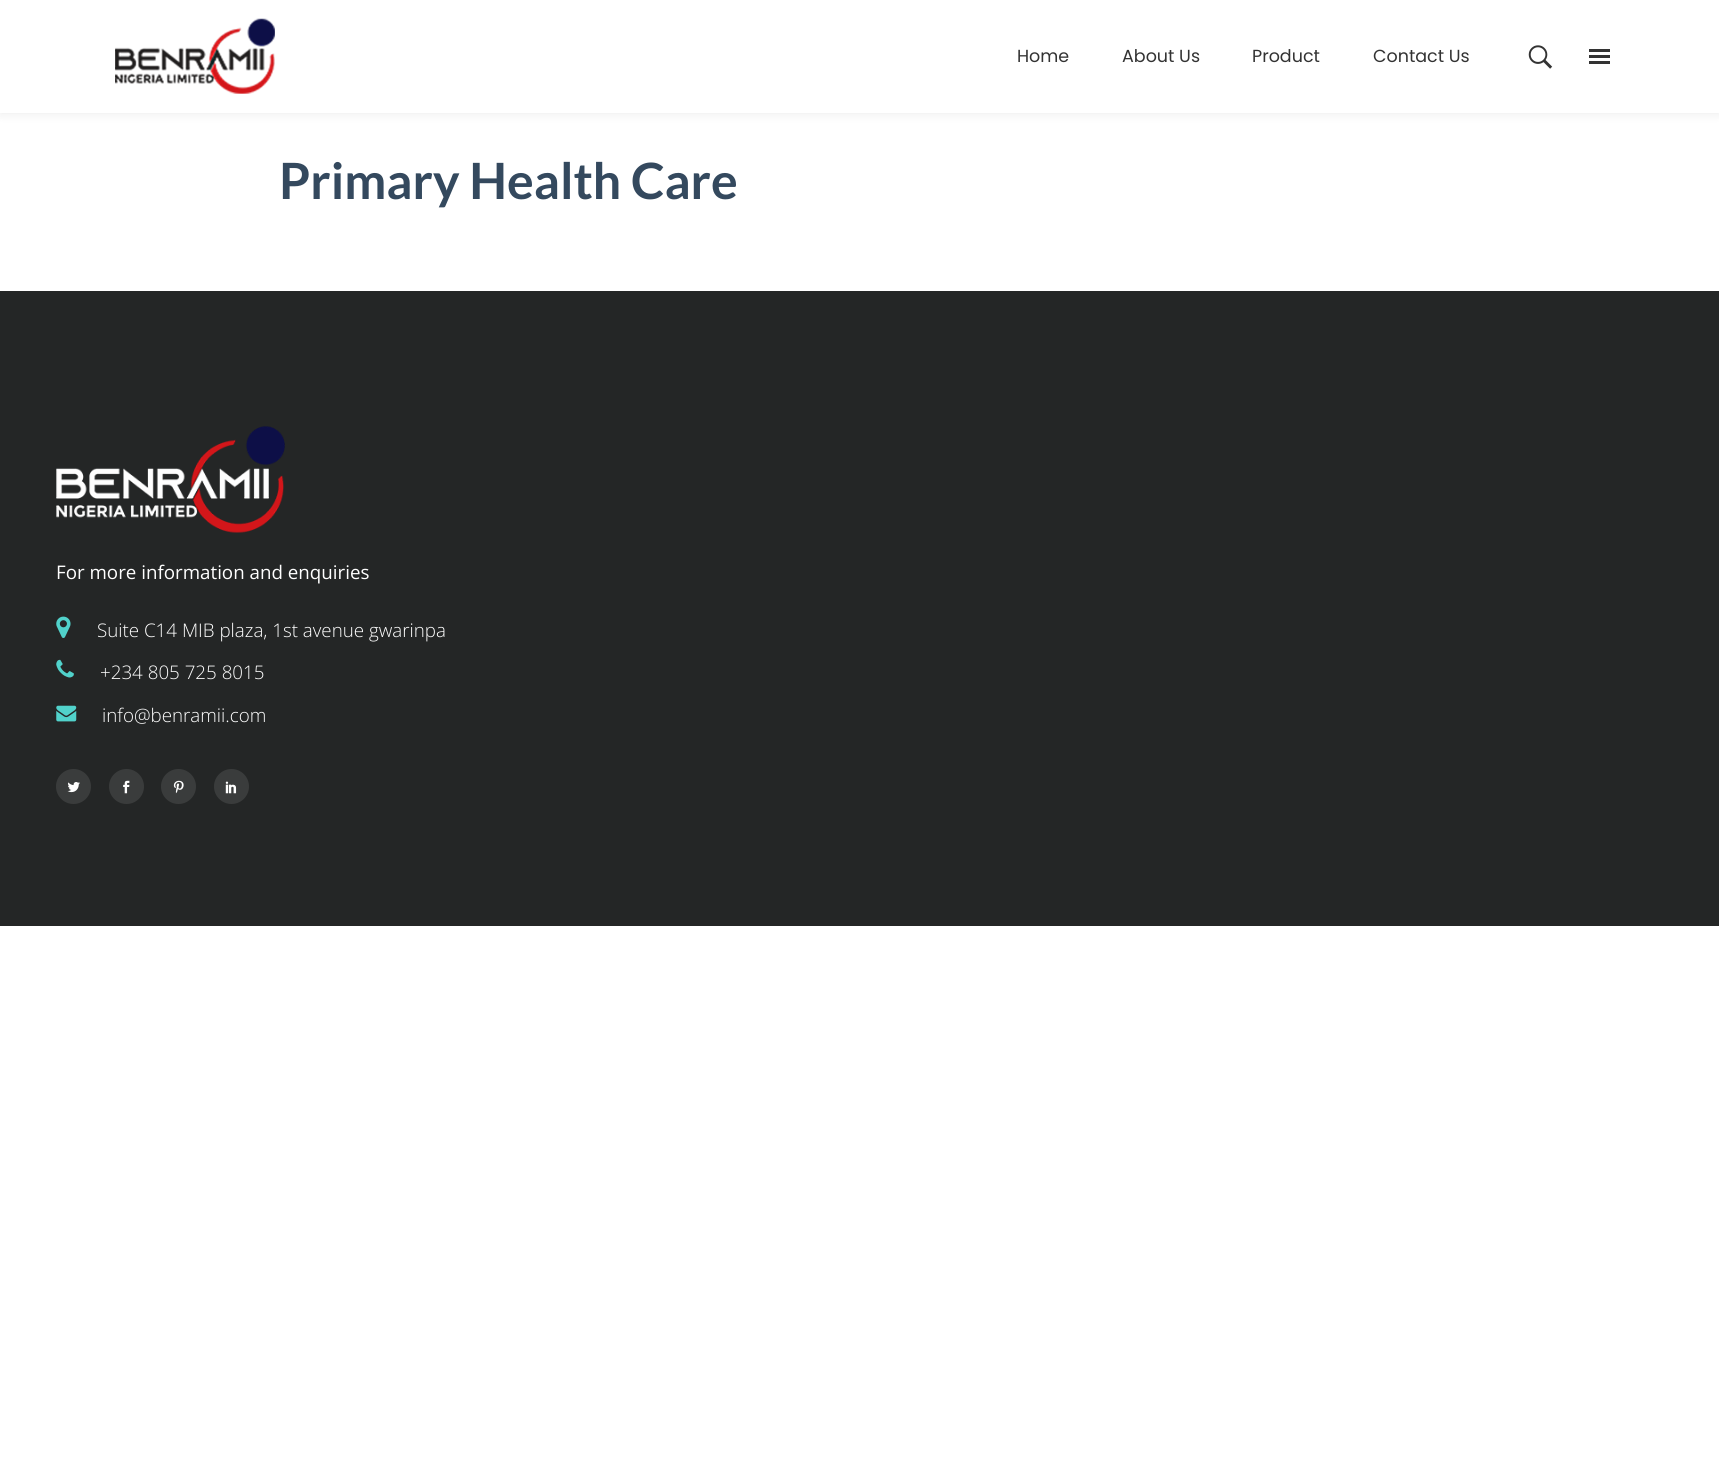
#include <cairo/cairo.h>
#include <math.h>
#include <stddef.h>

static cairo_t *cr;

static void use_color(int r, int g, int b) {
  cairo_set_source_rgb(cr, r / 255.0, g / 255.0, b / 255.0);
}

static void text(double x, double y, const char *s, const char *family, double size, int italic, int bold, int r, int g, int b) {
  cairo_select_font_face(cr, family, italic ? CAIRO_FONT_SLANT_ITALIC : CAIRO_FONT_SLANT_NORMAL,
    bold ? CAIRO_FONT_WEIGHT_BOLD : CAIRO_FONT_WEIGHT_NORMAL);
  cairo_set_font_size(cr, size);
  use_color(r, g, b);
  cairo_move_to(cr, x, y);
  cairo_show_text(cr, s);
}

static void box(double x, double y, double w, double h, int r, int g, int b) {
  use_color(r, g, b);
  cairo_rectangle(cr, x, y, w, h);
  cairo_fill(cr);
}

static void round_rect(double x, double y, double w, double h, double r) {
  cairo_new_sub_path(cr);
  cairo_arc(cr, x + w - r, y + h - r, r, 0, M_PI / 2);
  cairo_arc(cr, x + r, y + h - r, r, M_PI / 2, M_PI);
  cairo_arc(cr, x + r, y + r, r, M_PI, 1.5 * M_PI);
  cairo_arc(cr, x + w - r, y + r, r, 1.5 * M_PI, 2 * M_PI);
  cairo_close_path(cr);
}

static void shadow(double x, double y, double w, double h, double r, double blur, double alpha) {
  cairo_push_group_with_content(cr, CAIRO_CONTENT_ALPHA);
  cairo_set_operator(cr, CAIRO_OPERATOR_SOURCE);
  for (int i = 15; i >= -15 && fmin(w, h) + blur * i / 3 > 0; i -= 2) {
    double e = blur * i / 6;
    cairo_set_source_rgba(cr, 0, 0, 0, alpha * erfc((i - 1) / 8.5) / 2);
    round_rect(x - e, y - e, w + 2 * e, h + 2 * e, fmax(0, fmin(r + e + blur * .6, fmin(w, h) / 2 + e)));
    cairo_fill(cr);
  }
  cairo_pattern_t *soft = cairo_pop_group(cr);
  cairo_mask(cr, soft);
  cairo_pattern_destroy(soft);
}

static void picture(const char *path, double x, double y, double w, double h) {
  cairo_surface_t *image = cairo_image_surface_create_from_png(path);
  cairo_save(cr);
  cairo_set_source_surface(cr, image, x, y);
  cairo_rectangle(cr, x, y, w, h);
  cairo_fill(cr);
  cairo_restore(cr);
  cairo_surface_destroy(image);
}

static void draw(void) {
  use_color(255, 255, 255);
  cairo_paint(cr);
  use_color(0, 0, 0);
  shadow(0, 3, 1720, 112, 0, 5, 0.07);
  box(0, 0, 1719, 113, 255, 255, 255);
  picture("img_01.png", 115, 18, 160, 76);
  picture("img_02.png", 1528, 45, 25, 24);
  box(1589, 49, 21, 3, 51, 51, 51);
  box(1589, 55, 21, 3, 51, 51, 51);
  box(1589, 61, 21, 3, 51, 51, 51);
  box(0, 291, 1719, 635, 36, 38, 38);
  picture("img_03.png", 56, 426, 229, 107);
  picture("img_04.png", 56, 616, 15, 22);
  picture("img_05.png", 56, 659, 18, 19);
  picture("img_06.png", 56, 705, 21, 17);
  use_color(58, 60, 60);
  cairo_arc(cr, 73.5, 786.5, 17.5, 0, 2 * M_PI);
  cairo_fill(cr);
  picture("img_07.png", 67, 782, 13, 11);
  cairo_arc(cr, 126.5, 786.5, 17.5, 0, 2 * M_PI);
  cairo_fill(cr);
  picture("img_08.png", 123, 780, 7, 14);
  cairo_arc(cr, 178.5, 786.5, 17.5, 0, 2 * M_PI);
  cairo_fill(cr);
  picture("img_09.png", 173, 780, 11, 14);
  cairo_arc(cr, 231.5, 786.5, 17.5, 0, 2 * M_PI);
  cairo_fill(cr);
  picture("img_10.png", 225, 781, 12, 13);
  text(1017, 62, "Home", "Poppins", 17.5, 0, 0, 51, 51, 51);
  text(1122, 62, "About Us", "Poppins", 17.5, 0, 0, 51, 51, 51);
  text(1252, 62, "Product", "Poppins", 17.5, 0, 0, 51, 51, 51);
  text(1373, 62, "Contact Us", "Poppins", 17.5, 0, 0, 51, 51, 51);
  text(279, 199, "Primary Health Care", "Lato", 50, 0, 1, 52, 73, 94);
  text(56, 579, "For more information and enquiries", "Open Sans", 18.75, 0, 0, 255, 255, 255);
  text(97, 637, "Suite C14 MIB plaza, 1st avenue gwarinpa", "Open Sans Light", 18.75, 0, 0, 255, 255, 255);
  text(100, 679, "+234 805 725 8015", "Open Sans Light", 18.75, 0, 0, 255, 255, 255);
  text(102, 722, "info@benramii.com", "Open Sans Light", 18.75, 0, 0, 255, 255, 255);
}

int main(void) {
  cairo_surface_t *surface = cairo_image_surface_create(CAIRO_FORMAT_RGB24, 1719, 1478);
  cr = cairo_create(surface);
  cairo_font_options_t *options = cairo_font_options_create();
  cairo_font_options_set_hint_metrics(options, CAIRO_HINT_METRICS_OFF);
  cairo_font_options_set_hint_style(options, CAIRO_HINT_STYLE_NONE);
  cairo_set_font_options(cr, options);
  cairo_set_miter_limit(cr, 4);
  draw();
  cairo_surface_write_to_png(surface, "out.png");
  cairo_font_options_destroy(options);
  cairo_destroy(cr);
  cairo_surface_destroy(surface);
  return 0;
}
